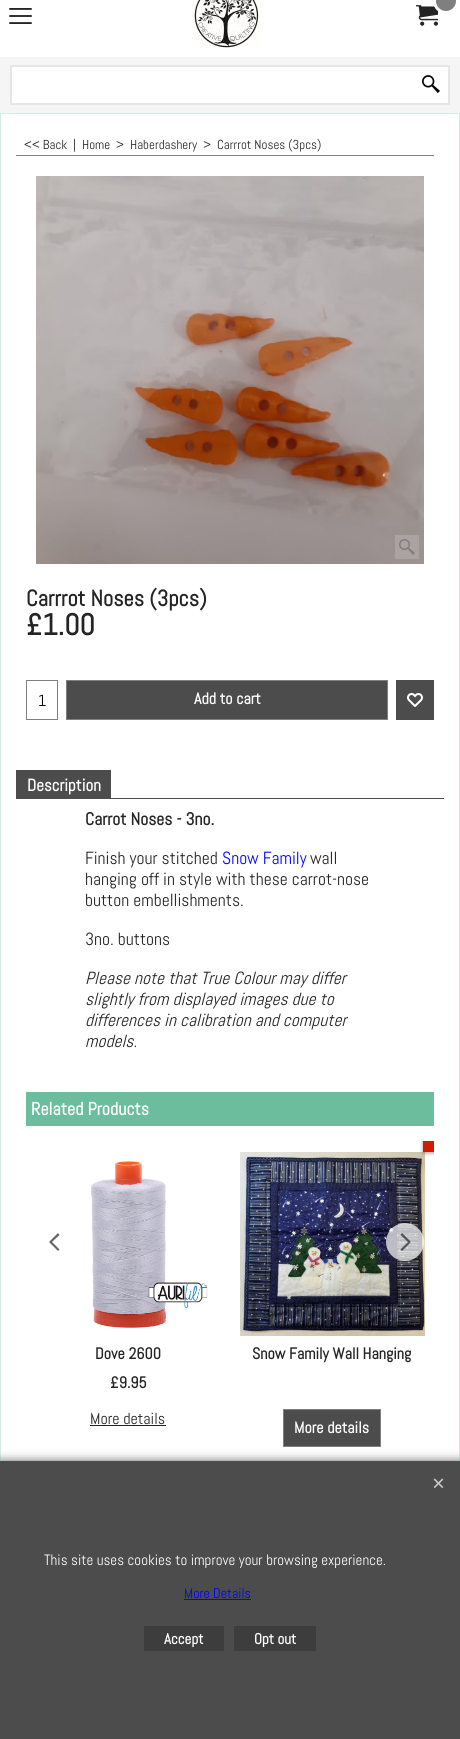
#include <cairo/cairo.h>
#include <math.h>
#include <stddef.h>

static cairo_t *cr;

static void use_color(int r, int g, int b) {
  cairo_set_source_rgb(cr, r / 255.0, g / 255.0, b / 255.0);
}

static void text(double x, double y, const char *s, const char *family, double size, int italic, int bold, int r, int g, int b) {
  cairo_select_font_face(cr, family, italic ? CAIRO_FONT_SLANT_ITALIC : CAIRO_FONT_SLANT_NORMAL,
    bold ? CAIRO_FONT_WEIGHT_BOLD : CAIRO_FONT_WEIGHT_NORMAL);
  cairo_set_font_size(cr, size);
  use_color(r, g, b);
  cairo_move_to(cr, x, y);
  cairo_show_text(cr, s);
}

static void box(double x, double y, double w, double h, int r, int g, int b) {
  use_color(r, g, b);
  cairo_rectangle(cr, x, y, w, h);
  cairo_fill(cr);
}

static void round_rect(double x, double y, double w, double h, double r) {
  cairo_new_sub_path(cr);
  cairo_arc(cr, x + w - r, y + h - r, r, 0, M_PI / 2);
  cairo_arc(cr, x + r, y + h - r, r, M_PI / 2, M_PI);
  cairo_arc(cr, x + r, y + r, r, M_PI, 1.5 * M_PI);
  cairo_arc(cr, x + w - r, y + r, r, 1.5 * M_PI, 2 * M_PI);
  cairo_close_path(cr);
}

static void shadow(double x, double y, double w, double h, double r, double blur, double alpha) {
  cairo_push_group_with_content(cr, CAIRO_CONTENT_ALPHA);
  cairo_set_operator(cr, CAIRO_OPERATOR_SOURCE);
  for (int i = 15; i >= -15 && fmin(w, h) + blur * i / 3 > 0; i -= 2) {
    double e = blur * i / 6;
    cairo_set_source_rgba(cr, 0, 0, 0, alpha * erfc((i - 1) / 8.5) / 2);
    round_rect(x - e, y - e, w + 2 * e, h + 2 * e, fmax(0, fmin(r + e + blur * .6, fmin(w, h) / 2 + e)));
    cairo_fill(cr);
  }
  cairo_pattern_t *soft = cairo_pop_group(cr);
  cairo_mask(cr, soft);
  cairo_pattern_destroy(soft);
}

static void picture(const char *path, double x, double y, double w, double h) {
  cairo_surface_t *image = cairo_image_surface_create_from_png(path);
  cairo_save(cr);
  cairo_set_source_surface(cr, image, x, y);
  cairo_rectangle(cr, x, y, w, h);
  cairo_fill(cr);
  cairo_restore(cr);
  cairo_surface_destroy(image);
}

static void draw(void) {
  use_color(255, 255, 255);
  cairo_paint(cr);
  picture("img_01.png", 9, 8, 23, 16);
  picture("img_02.png", 192, 0, 69, 48);
  picture("img_03.png", 416, 5, 22, 21);
  use_color(127, 127, 127);
  cairo_arc(cr, 446, 1, 11.5, 0, 2 * M_PI);
  cairo_fill_preserve(cr);
  use_color(255, 255, 255);
  cairo_set_line_width(cr, 3);
  cairo_stroke(cr);
  box(0, 57, 460, 56, 245, 245, 246);
  use_color(255, 255, 255);
  cairo_rectangle(cr, 11, 66, 438, 38);
  cairo_fill_preserve(cr);
  use_color(230, 230, 230);
  cairo_set_line_width(cr, 2);
  cairo_stroke(cr);
  picture("img_04.png", 422, 75, 18, 18);
  cairo_rectangle(cr, 0.5, 113.5, 459, 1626);
  use_color(210, 237, 227);
  cairo_set_line_width(cr, 1);
  cairo_stroke(cr);
  box(16, 155, 418, 1, 127, 127, 127);
  picture("img_05.png", 36, 176, 388, 388);
  cairo_set_source_rgba(cr, 0.8, 0.8, 0.8, 0.3);
  cairo_rectangle(cr, 395, 535, 24, 24);
  cairo_fill(cr);
  picture("img_06.png", 399, 539, 16, 16);
  cairo_rectangle(cr, 26.5, 680.5, 31, 39);
  use_color(127, 127, 127);
  cairo_stroke(cr);
  use_color(76, 76, 76);
  cairo_rectangle(cr, 66.5, 680.5, 321, 39);
  cairo_fill_preserve(cr);
  use_color(127, 127, 127);
  cairo_stroke(cr);
  box(396, 680, 38, 40, 76, 76, 76);
  picture("img_07.png", 407, 693, 16, 14);
  box(16, 770, 95, 29, 76, 76, 76);
  box(111, 798, 333, 1, 76, 76, 76);
  box(26, 1092, 408, 34, 108, 189, 158);
  use_color(102, 102, 102);
  cairo_new_path(cr);
  cairo_move_to(cr, 58, 1251);
  cairo_line_to(cr, 59.5, 1249.5);
  cairo_line_to(cr, 52, 1242);
  cairo_line_to(cr, 59.5, 1235);
  cairo_line_to(cr, 58, 1233);
  cairo_line_to(cr, 49, 1242);
  cairo_close_path(cr);
  cairo_fill(cr);
  picture("img_09.png", 240, 1152, 185, 184);
  cairo_set_source_rgba(cr, 1, 1, 1, 0.7);
  cairo_arc(cr, 405, 1242, 19, 0, 2 * M_PI);
  cairo_fill(cr);
  cairo_set_source_rgba(cr, 0.141, 0.141, 0.141, 0.7);
  cairo_new_path(cr);
  cairo_move_to(cr, 402, 1233);
  cairo_line_to(cr, 400.5, 1235);
  cairo_line_to(cr, 408, 1242);
  cairo_line_to(cr, 400.5, 1249.5);
  cairo_line_to(cr, 402, 1251);
  cairo_line_to(cr, 411, 1242);
  cairo_close_path(cr);
  cairo_fill(cr);
  picture("img_08.png", 91, 1161, 117, 167);
  box(90, 1425, 76, 1, 36, 36, 36);
  cairo_save(cr);
  cairo_rectangle(cr, 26, 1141, 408, 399);
  cairo_clip(cr);
  use_color(50, 50, 50);
  shadow(423, 1137, 16, 16, 0, 2, 0.5);
  cairo_restore(cr);
  box(423, 1141, 11, 11, 212, 25, 0);
  use_color(76, 76, 76);
  cairo_rectangle(cr, 283.5, 1409.5, 97, 37);
  cairo_fill_preserve(cr);
  use_color(127, 127, 127);
  cairo_stroke(cr);
  use_color(102, 102, 102);
  shadow(0, 1461, 460, 278, 0, 5, 1);
  box(0, 1461, 460, 278, 76, 76, 76);
  picture("img_10.png", 433, 1478, 11, 10);
  box(184, 1599, 67, 1, 0, 0, 255);
  box(144, 1626, 80, 25, 61, 61, 61);
  box(234, 1626, 82, 25, 61, 61, 61);
  text(24, 149, "<< Back", "Abel", 13, 0, 0, 36, 36, 36);
  text(73, 149, "|", "Abel", 13, 0, 0, 36, 36, 36);
  text(82, 149, "Home", "Abel", 13, 0, 0, 36, 36, 36);
  text(116, 149, ">", "Abel", 13, 0, 0, 36, 36, 36);
  text(130, 149, "Haberdashery", "Abel", 13, 0, 0, 36, 36, 36);
  text(203, 149, ">", "Abel", 13, 0, 0, 36, 36, 36);
  text(217, 149, "Carrrot Noses (3pcs)", "Abel", 13, 0, 0, 36, 36, 36);
  text(26, 606, "Carrrot Noses (3pcs)", "Abel", 22.5, 0, 1, 36, 36, 36);
  text(26, 635, "£1.00", "Abel", 30, 0, 1, 36, 36, 36);
  text(38, 706, "1", "Abel", 16, 0, 0, 0, 0, 0);
  text(194, 704, "Add to cart", "Abel", 16, 0, 1, 255, 255, 255);
  text(27, 791, "Description", "Abel", 17, 0, 1, 255, 255, 255);
  text(85, 825, "Carrot Noses - 3no.", "Abel", 17.6, 0, 1, 36, 36, 36);
  text(85, 864, "Finish your stitched", "Abel", 17.6, 0, 0, 36, 36, 36);
  text(222, 864, "Snow Family", "Abel", 17.6, 0, 0, 0, 0, 255);
  text(310, 864, "wall", "Abel", 17.6, 0, 0, 36, 36, 36);
  text(85, 885, "hanging off in style with these carrot-nose", "Abel", 17.6, 0, 0, 36, 36, 36);
  text(85, 906, "button embellishments.", "Abel", 17.6, 0, 0, 36, 36, 36);
  text(85, 945, "3no. buttons", "Abel", 17.6, 0, 0, 36, 36, 36);
  text(85, 984, "Please note that True Colour may differ", "Abel", 17.6, 1, 0, 36, 36, 36);
  text(85, 1005, "slightly from displayed images due to", "Abel", 17.6, 1, 0, 36, 36, 36);
  text(85, 1026, "differences in calibration and computer", "Abel", 17.6, 1, 0, 36, 36, 36);
  text(85, 1047, "models.", "Abel", 17.6, 1, 0, 36, 36, 36);
  text(31, 1115, "Related Products", "Abel", 18, 0, 1, 255, 255, 255);
  text(95, 1359, "Dove 2600", "Abel", 16, 0, 1, 36, 36, 36);
  text(110, 1388, "£9.95", "Abel", 16, 0, 1, 36, 36, 36);
  text(90, 1424, "More details", "Abel", 16, 0, 0, 36, 36, 36);
  text(252, 1359, "Snow Family Wall Hanging", "Abel", 16, 0, 1, 36, 36, 36);
  text(294, 1433, "More details", "Abel", 16, 0, 1, 255, 255, 255);
  text(44, 1565, "This site uses cookies to improve your browsing experience.", "Abel", 15, 0, 0, 255, 255, 255);
  text(184, 1598, "More Details", "Abel", 14, 0, 0, 0, 0, 255);
  text(164, 1644, "Accept", "Abel", 15, 0, 1, 255, 255, 255);
  text(254, 1644, "Opt out", "Abel", 15, 0, 1, 255, 255, 255);
}

int main(void) {
  cairo_surface_t *surface = cairo_image_surface_create(CAIRO_FORMAT_RGB24, 460, 1739);
  cr = cairo_create(surface);
  cairo_font_options_t *options = cairo_font_options_create();
  cairo_font_options_set_hint_metrics(options, CAIRO_HINT_METRICS_OFF);
  cairo_font_options_set_hint_style(options, CAIRO_HINT_STYLE_NONE);
  cairo_set_font_options(cr, options);
  cairo_set_miter_limit(cr, 4);
  draw();
  cairo_surface_write_to_png(surface, "out.png");
  cairo_font_options_destroy(options);
  cairo_destroy(cr);
  cairo_surface_destroy(surface);
  return 0;
}
